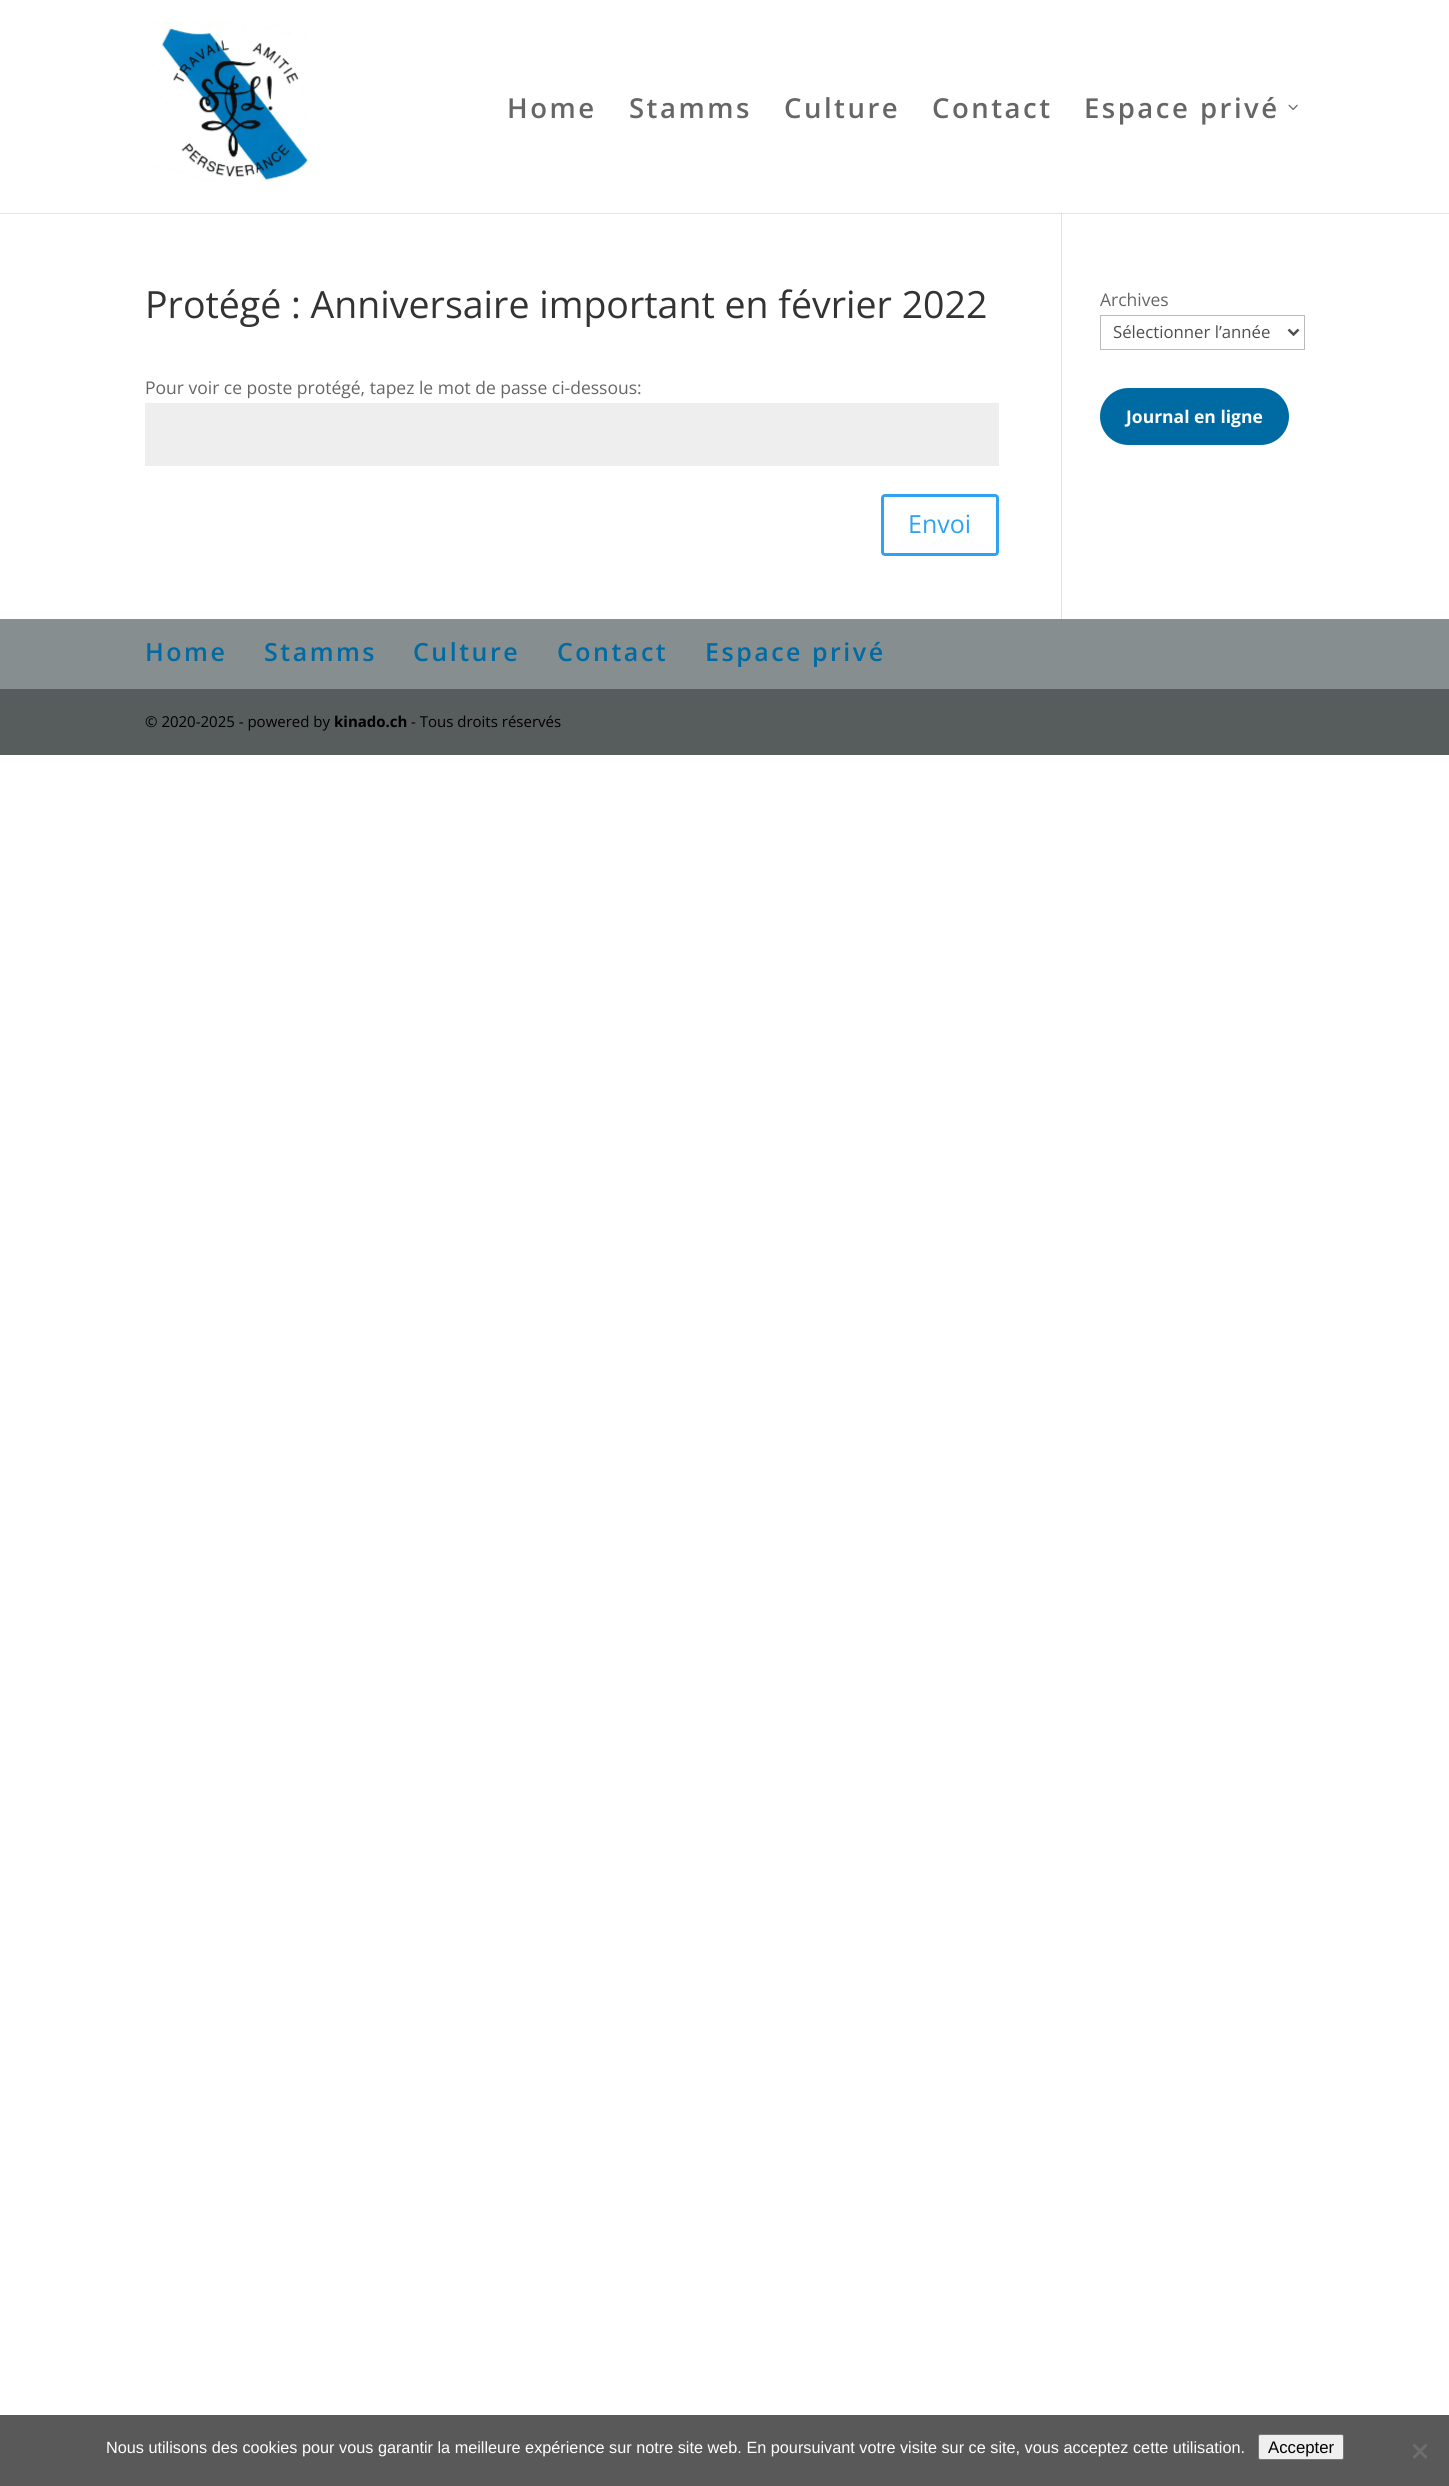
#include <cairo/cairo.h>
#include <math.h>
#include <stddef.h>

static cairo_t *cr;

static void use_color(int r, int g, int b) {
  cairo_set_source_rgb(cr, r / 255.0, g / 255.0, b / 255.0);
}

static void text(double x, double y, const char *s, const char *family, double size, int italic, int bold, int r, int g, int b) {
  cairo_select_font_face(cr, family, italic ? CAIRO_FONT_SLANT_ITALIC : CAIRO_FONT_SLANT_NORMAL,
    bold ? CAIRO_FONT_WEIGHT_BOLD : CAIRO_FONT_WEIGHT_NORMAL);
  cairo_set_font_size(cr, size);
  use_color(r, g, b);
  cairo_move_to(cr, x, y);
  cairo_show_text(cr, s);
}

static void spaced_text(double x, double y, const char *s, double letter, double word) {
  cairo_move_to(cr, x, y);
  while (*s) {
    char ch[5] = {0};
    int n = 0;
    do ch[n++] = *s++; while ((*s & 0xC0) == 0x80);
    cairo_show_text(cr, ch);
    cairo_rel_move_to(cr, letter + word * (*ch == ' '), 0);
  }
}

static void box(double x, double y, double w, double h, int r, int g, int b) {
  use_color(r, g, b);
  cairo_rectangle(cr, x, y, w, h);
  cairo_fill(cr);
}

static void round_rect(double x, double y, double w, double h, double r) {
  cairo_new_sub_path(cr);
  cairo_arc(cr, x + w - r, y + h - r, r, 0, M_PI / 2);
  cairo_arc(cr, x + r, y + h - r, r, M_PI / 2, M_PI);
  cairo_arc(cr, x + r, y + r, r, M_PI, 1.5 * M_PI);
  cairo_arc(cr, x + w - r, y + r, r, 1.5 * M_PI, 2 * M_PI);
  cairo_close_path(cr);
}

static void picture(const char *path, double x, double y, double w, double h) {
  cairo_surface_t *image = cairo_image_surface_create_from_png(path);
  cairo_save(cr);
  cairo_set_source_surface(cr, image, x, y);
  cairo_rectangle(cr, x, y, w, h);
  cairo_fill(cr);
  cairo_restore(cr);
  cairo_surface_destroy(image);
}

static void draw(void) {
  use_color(255, 255, 255);
  cairo_paint(cr);
  box(0, 213, 1449, 1, 230, 230, 230);
  picture("img_01.png", 153, 22, 155, 159);
  picture("img_02.png", 1288, 104, 10, 6);
  box(1061, 213, 1, 406, 226, 226, 226);
  box(1061, 213, 1, 1, 203, 203, 203);
  box(145, 403, 854, 63, 238, 238, 238);
  round_rect(882.5, 495.5, 115, 59, 2.5);
  use_color(46, 163, 242);
  cairo_set_line_width(cr, 3);
  cairo_stroke(cr);
  cairo_rectangle(cr, 1100.5, 315.5, 204, 34);
  use_color(187, 187, 187);
  cairo_set_line_width(cr, 1);
  cairo_stroke(cr);
  cairo_new_path(cr);
  cairo_move_to(cr, 1288.5, 329.5);
  cairo_line_to(cr, 1293.5, 334.5);
  cairo_line_to(cr, 1298.5, 329.5);
  use_color(78, 78, 78);
  cairo_set_line_width(cr, 2.5);
  cairo_stroke(cr);
  use_color(0, 106, 163);
  round_rect(1100, 388, 189, 57, 28.5);
  cairo_fill(cr);
  box(0, 619, 1449, 70, 134, 142, 143);
  box(0, 689, 1449, 66, 87, 92, 93);
  box(0, 2415, 1449, 71, 89, 89, 89);
  use_color(239, 239, 239);
  round_rect(1258.5, 2434.5, 85, 25, 2);
  cairo_fill_preserve(cr);
  use_color(118, 118, 118);
  cairo_set_line_width(cr, 1);
  cairo_stroke(cr);
  use_color(109, 109, 109);
  cairo_new_path(cr);
  cairo_move_to(cr, 1425.5, 2443.5);
  cairo_line_to(cr, 1427.5, 2445.5);
  cairo_line_to(cr, 1414.5, 2459);
  cairo_line_to(cr, 1412.5, 2457);
  cairo_close_path(cr);
  cairo_fill(cr);
  cairo_new_path(cr);
  cairo_move_to(cr, 1412.5, 2445.5);
  cairo_line_to(cr, 1414.5, 2443.5);
  cairo_line_to(cr, 1427.5, 2457);
  cairo_line_to(cr, 1425.5, 2459);
  cairo_close_path(cr);
  cairo_fill(cr);
  cairo_select_font_face(cr, "Open Sans SemiBold", CAIRO_FONT_SLANT_NORMAL, CAIRO_FONT_WEIGHT_NORMAL);
  cairo_set_font_size(cr, 27.5);
  use_color(102, 102, 102);
  spaced_text(507, 118, "Home", 2.5, 0);
  spaced_text(629, 118, "Stamms", 2.5, 0);
  spaced_text(784, 118, "Culture", 2.5, 0);
  spaced_text(932, 118, "Contact", 2.5, 0);
  spaced_text(1084, 118, "Espace privé", 2.5, 0);
  text(145, 318, "Protégé : Anniversaire important en février 2022", "Open Sans", 37.5, 0, 0, 51, 51, 51);
  text(145, 394, "Pour voir ce poste protégé, tapez le mot de passe ci-dessous:", "Open Sans", 17.5, 0, 0, 102, 102, 102);
  text(908, 533, "Envoi", "Open Sans", 25, 0, 0, 46, 163, 242);
  text(1100, 306, "Archives", "Open Sans", 17.5, 0, 0, 102, 102, 102);
  text(1113, 338, "Sélectionner l’année", "Open Sans", 16.75, 0, 0, 78, 78, 78);
  text(1126, 423, "Journal en ligne", "Open Sans", 17.5, 0, 1, 255, 255, 255);
  cairo_select_font_face(cr, "Open Sans SemiBold", CAIRO_FONT_SLANT_NORMAL, CAIRO_FONT_WEIGHT_NORMAL);
  cairo_set_font_size(cr, 25);
  use_color(0, 106, 163);
  spaced_text(145, 661, "Home", 2.5, 0);
  spaced_text(264, 661, "Stamms", 2.5, 0);
  spaced_text(413, 661, "Culture", 2.5, 0);
  spaced_text(557, 661, "Contact", 2.5, 0);
  spaced_text(705, 661, "Espace privé", 2.5, 0);
  text(145, 727, "© 2020-2025 - powered by", "Open Sans", 15, 0, 0, 0, 0, 0);
  text(334, 727, "kinado.ch", "Open Sans", 15, 0, 1, 0, 0, 0);
  text(411, 727, "- Tous droits réservés", "Open Sans", 15, 0, 0, 0, 0, 0);
  text(106, 2453, "Nous utilisons des cookies pour vous garantir la meilleure expérience sur notre site web. En poursuivant votre visite sur ce site, vous acceptez cette utilisation.", "Liberation Sans", 16.25, 0, 0, 255, 255, 255);
  text(1268, 2453, "Accepter", "Liberation Sans", 16.75, 0, 0, 0, 0, 0);
}

int main(void) {
  cairo_surface_t *surface = cairo_image_surface_create(CAIRO_FORMAT_RGB24, 1449, 2486);
  cr = cairo_create(surface);
  cairo_font_options_t *options = cairo_font_options_create();
  cairo_font_options_set_hint_metrics(options, CAIRO_HINT_METRICS_OFF);
  cairo_font_options_set_hint_style(options, CAIRO_HINT_STYLE_NONE);
  cairo_set_font_options(cr, options);
  cairo_set_miter_limit(cr, 4);
  draw();
  cairo_surface_write_to_png(surface, "out.png");
  cairo_font_options_destroy(options);
  cairo_destroy(cr);
  cairo_surface_destroy(surface);
  return 0;
}
